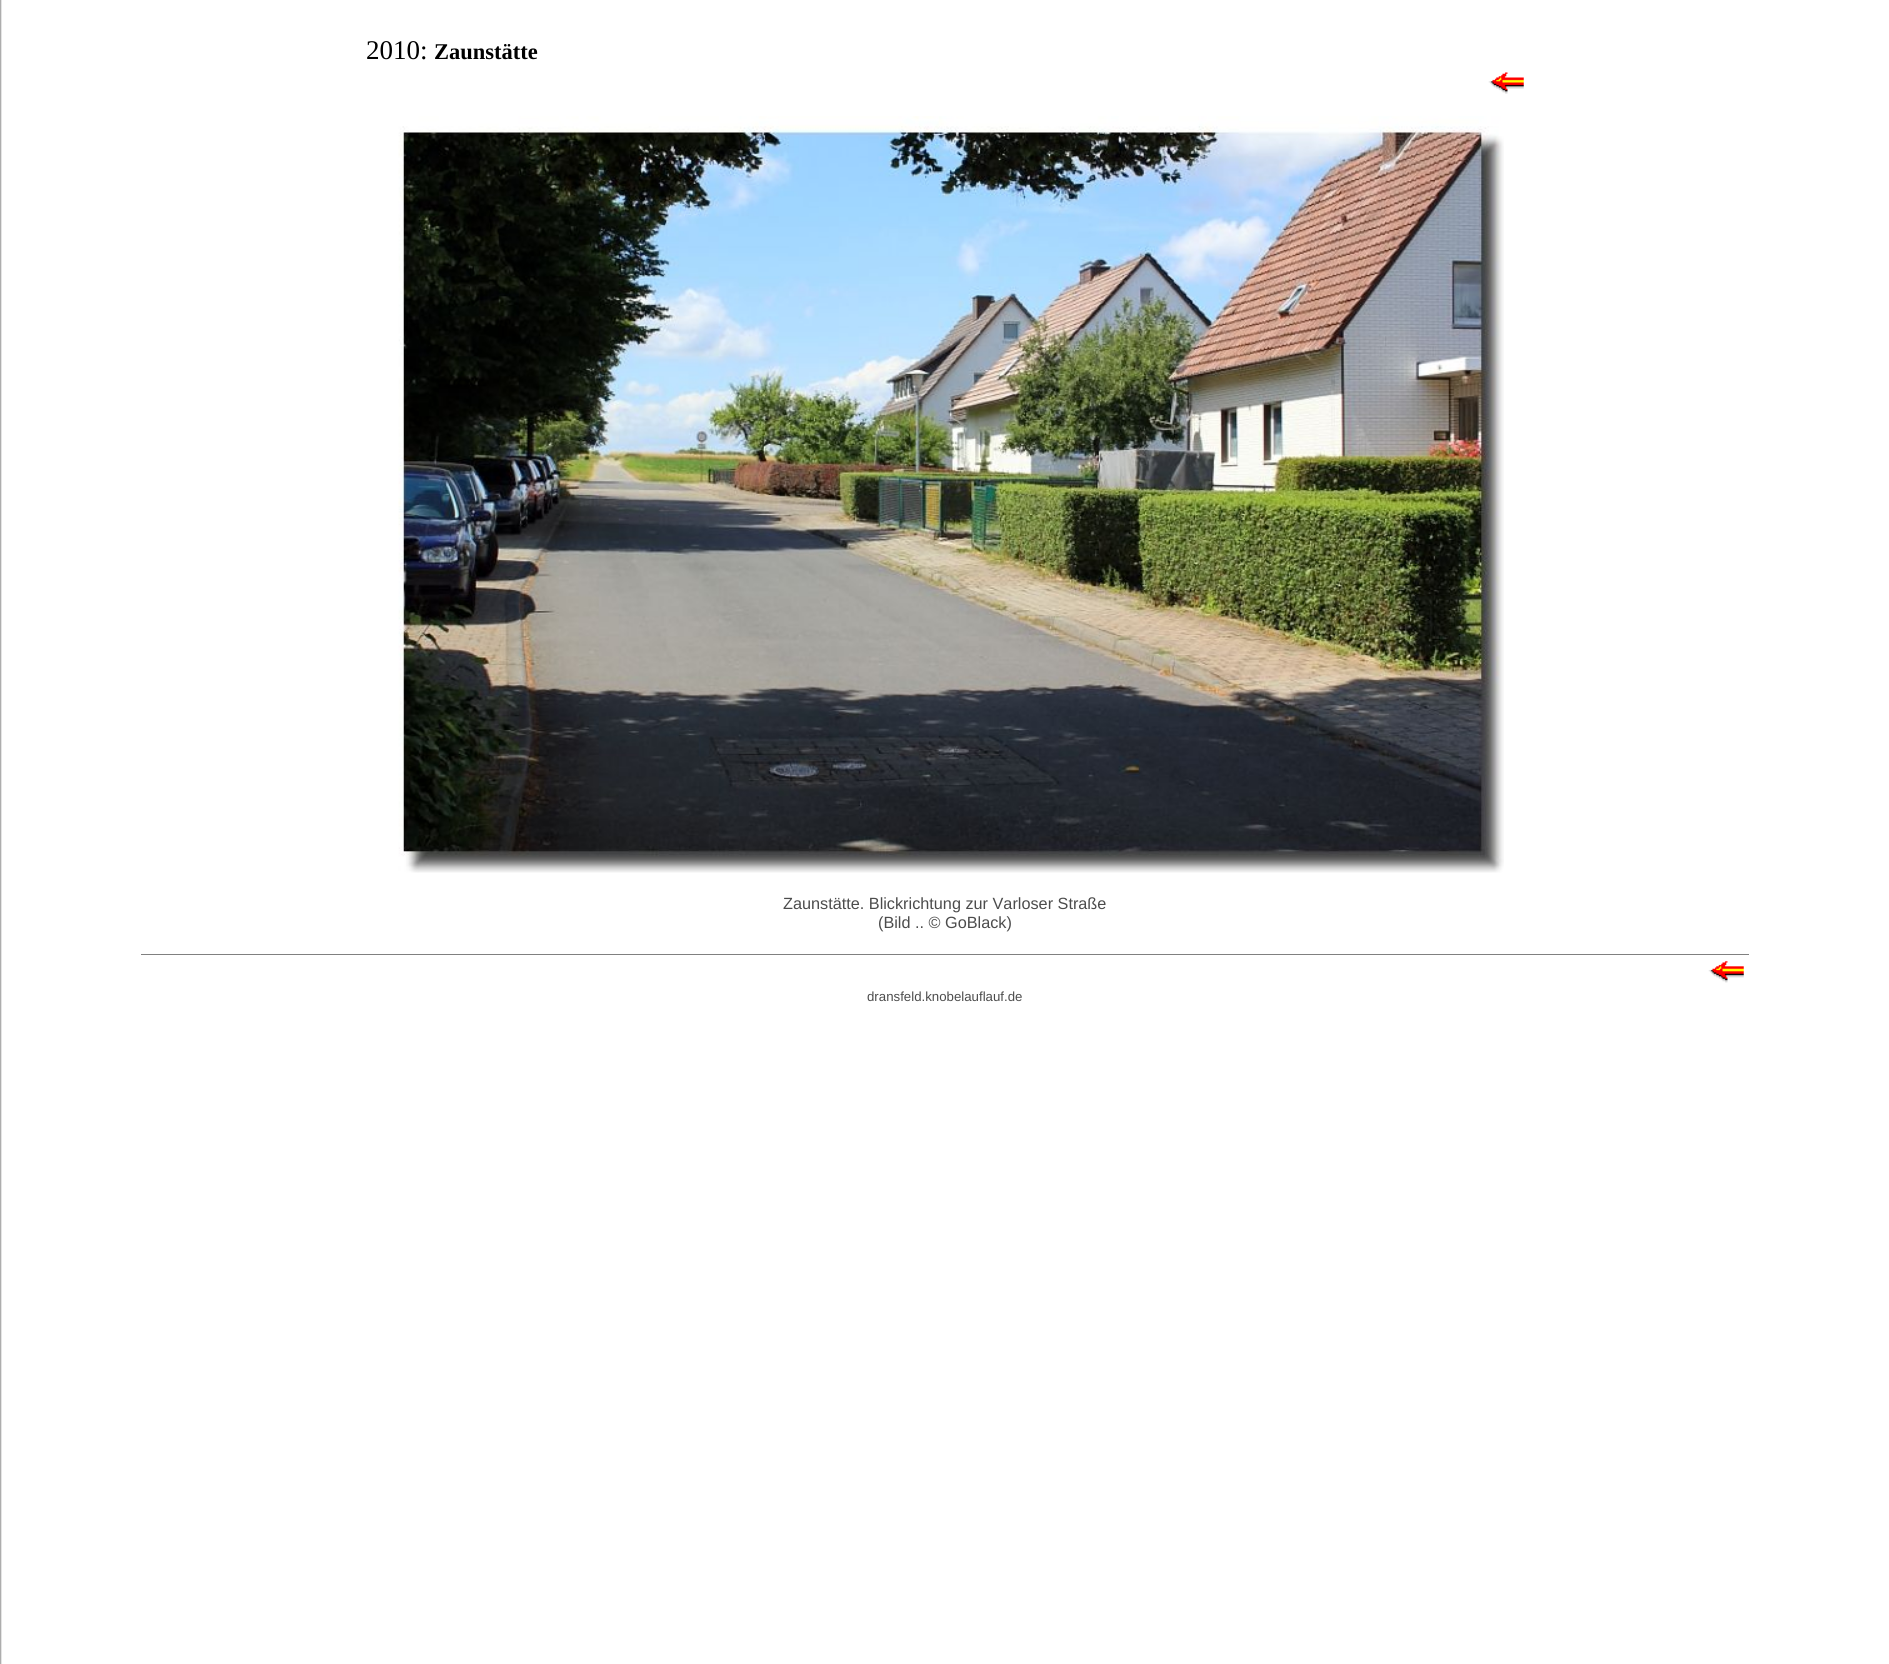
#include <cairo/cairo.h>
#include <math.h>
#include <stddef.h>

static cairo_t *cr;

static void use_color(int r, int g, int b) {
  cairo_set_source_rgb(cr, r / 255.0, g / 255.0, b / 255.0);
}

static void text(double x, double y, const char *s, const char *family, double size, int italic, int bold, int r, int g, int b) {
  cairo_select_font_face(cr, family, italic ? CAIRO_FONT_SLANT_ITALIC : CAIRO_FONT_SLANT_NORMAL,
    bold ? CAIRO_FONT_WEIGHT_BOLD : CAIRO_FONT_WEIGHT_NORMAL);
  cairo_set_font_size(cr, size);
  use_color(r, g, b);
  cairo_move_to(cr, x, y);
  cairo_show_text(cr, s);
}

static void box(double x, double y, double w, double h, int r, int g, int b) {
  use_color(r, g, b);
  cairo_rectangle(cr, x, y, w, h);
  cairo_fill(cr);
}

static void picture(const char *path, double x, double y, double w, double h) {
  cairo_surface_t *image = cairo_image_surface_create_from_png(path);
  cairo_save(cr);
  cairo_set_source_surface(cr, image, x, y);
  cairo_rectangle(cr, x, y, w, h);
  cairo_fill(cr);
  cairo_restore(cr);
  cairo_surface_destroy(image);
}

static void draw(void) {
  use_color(255, 255, 255);
  cairo_paint(cr);
  picture("img_01.png", 0, 0, 2, 1664);
  picture("img_02.png", 1488, 72, 36, 22);
  picture("img_03.png", 398, 116, 1106, 757);
  box(141, 954, 1608, 1, 128, 128, 128);
  picture("img_04.png", 1708, 961, 36, 22);
  text(366, 59, "2010:", "Liberation Serif", 27, 0, 0, 0, 0, 0);
  text(434, 59, "Zaunstätte", "Liberation Serif", 22.5, 0, 1, 0, 0, 0);
  text(783, 909, "Zaunstätte. Blickrichtung zur Varloser Straße", "Liberation Sans", 16.25, 0, 0, 76, 76, 76);
  text(878, 928, "(Bild .. © GoBlack)", "Liberation Sans", 16.25, 0, 0, 76, 76, 76);
  text(867, 1001, "dransfeld.knobelauflauf.de", "Liberation Sans", 13.25, 0, 0, 76, 76, 76);
}

int main(void) {
  cairo_surface_t *surface = cairo_image_surface_create(CAIRO_FORMAT_RGB24, 1889, 1664);
  cr = cairo_create(surface);
  cairo_font_options_t *options = cairo_font_options_create();
  cairo_font_options_set_hint_metrics(options, CAIRO_HINT_METRICS_OFF);
  cairo_font_options_set_hint_style(options, CAIRO_HINT_STYLE_NONE);
  cairo_set_font_options(cr, options);
  cairo_set_miter_limit(cr, 4);
  draw();
  cairo_surface_write_to_png(surface, "out.png");
  cairo_font_options_destroy(options);
  cairo_destroy(cr);
  cairo_surface_destroy(surface);
  return 0;
}
